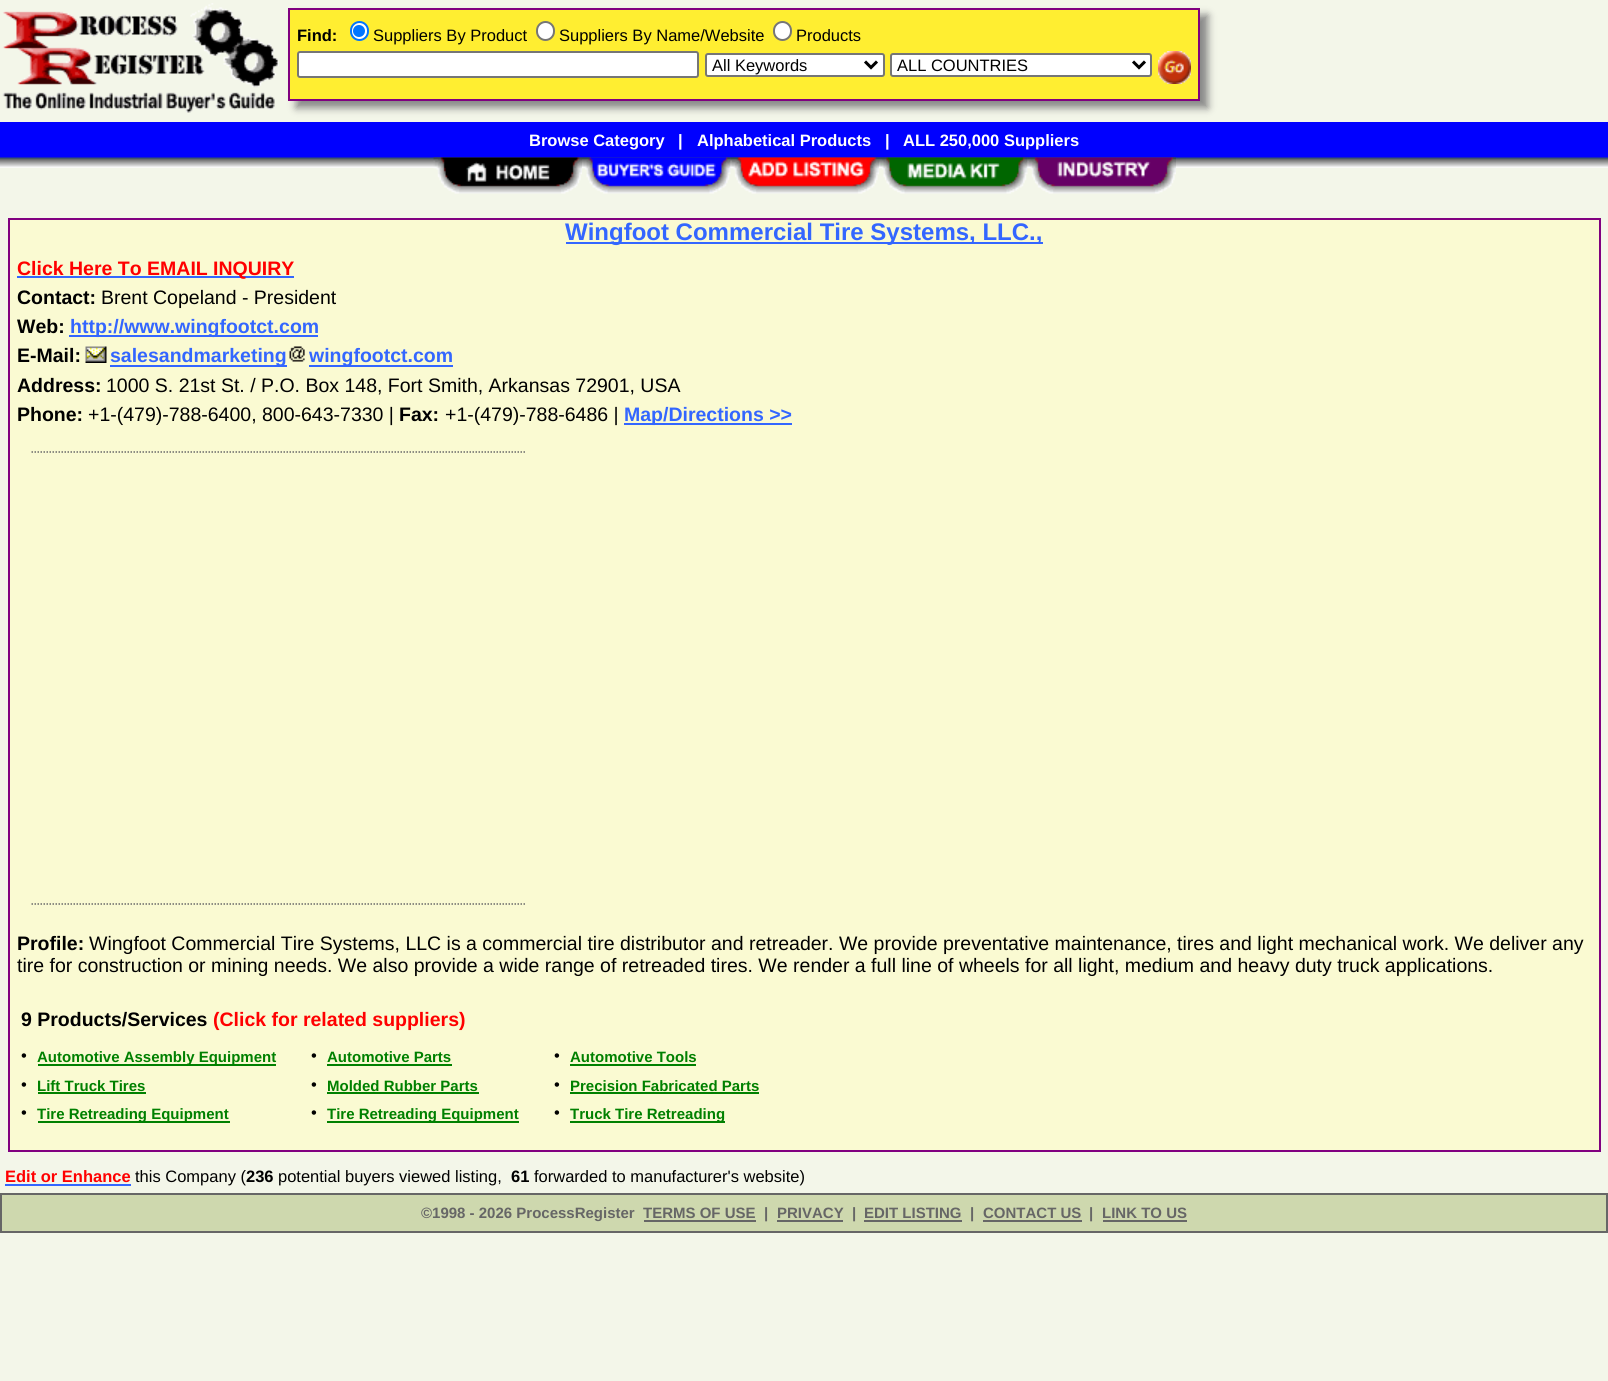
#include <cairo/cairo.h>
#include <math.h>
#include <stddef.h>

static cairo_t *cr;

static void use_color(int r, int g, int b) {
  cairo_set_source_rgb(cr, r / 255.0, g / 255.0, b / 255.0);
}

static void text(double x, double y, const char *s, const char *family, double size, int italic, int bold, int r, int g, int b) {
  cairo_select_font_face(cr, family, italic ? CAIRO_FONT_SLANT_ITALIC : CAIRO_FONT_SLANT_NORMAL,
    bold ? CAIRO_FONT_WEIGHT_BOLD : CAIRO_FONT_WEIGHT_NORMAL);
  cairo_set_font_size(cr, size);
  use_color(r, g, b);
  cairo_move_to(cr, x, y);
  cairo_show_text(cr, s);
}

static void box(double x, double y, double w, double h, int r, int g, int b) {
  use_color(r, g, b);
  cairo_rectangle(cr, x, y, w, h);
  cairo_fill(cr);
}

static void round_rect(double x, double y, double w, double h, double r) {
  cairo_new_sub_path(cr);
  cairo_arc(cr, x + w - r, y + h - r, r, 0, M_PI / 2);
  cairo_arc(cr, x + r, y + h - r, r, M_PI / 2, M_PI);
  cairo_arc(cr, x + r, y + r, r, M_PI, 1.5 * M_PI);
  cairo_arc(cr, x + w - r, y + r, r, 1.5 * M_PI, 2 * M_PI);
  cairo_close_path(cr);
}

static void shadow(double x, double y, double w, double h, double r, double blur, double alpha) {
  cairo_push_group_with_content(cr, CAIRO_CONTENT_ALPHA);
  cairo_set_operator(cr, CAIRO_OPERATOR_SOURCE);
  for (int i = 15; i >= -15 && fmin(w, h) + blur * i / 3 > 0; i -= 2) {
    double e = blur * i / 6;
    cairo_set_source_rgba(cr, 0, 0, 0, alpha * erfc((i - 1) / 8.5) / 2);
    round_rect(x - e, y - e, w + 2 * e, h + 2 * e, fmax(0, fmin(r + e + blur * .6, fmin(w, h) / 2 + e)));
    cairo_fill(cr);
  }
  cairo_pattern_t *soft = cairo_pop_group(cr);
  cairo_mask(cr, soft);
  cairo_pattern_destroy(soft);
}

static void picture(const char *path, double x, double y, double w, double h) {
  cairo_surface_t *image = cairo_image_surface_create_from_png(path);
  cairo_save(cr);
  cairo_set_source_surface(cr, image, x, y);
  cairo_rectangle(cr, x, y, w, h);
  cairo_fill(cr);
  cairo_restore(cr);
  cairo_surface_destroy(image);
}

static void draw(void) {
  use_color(243, 246, 233);
  cairo_paint(cr);
  picture("img_01.png", 2, 3, 277, 110);
  use_color(136, 136, 136);
  shadow(296, 15, 912, 93, 0, 4, 1);
  use_color(255, 238, 49);
  cairo_rectangle(cr, 289, 9, 910, 91);
  cairo_fill_preserve(cr);
  use_color(128, 0, 128);
  cairo_stroke(cr);
  use_color(255, 255, 255);
  round_rect(351, 22, 17, 18, 8.5);
  cairo_fill_preserve(cr);
  use_color(0, 117, 255);
  cairo_stroke(cr);
  cairo_arc(cr, 359, 31, 6, 0, 2 * M_PI);
  cairo_fill(cr);
  use_color(255, 255, 255);
  round_rect(537, 22, 17, 18, 8.5);
  cairo_fill_preserve(cr);
  use_color(118, 118, 118);
  cairo_stroke(cr);
  use_color(255, 255, 255);
  round_rect(774, 22, 17, 18, 8.5);
  cairo_fill_preserve(cr);
  use_color(118, 118, 118);
  cairo_stroke(cr);
  use_color(255, 255, 255);
  round_rect(298, 52, 400, 25, 2);
  cairo_fill_preserve(cr);
  use_color(118, 118, 118);
  cairo_stroke(cr);
  use_color(255, 255, 255);
  round_rect(706, 54, 178, 22, 2);
  cairo_fill_preserve(cr);
  use_color(118, 118, 118);
  cairo_stroke(cr);
  cairo_new_path(cr);
  cairo_move_to(cr, 865, 61.5);
  cairo_line_to(cr, 871, 67.5);
  cairo_line_to(cr, 877, 61.5);
  use_color(0, 0, 0);
  cairo_set_line_width(cr, 3);
  cairo_stroke(cr);
  use_color(255, 255, 255);
  round_rect(891, 54, 260, 22, 2);
  cairo_fill_preserve(cr);
  use_color(118, 118, 118);
  cairo_set_line_width(cr, 2);
  cairo_stroke(cr);
  cairo_new_path(cr);
  cairo_move_to(cr, 1133, 61.5);
  cairo_line_to(cr, 1139, 67.5);
  cairo_line_to(cr, 1145, 61.5);
  use_color(0, 0, 0);
  cairo_set_line_width(cr, 3);
  cairo_stroke(cr);
  picture("img_02.png", 1158, 51, 33, 33);
  box(0, 122, 1608, 36, 0, 0, 255);
  picture("img_03.png", 0, 157, 1608, 11);
  picture("img_04.png", 433, 157, 149, 37);
  picture("img_05.png", 582, 157, 149, 37);
  picture("img_06.png", 730, 157, 149, 37);
  picture("img_07.png", 879, 157, 149, 37);
  picture("img_08.png", 1027, 157, 149, 37);
  use_color(250, 250, 210);
  cairo_rectangle(cr, 9, 219, 1591, 932);
  cairo_fill_preserve(cr);
  use_color(128, 0, 128);
  cairo_set_line_width(cr, 2);
  cairo_stroke(cr);
  box(566, 242, 477, 2, 51, 102, 255);
  box(17, 276, 277, 2, 51, 102, 255);
  box(69, 335, 249, 2, 51, 102, 255);
  picture("img_09.png", 85, 346, 22, 17);
  box(110, 365, 177, 2, 51, 102, 255);
  picture("img_10.png", 289, 346, 16, 16);
  box(309, 365, 144, 2, 51, 102, 255);
  box(624, 423, 168, 2, 51, 102, 255);
  cairo_new_path(cr);
  cairo_move_to(cr, 31.5, 452);
  cairo_line_to(cr, 526.5, 452);
  use_color(105, 105, 105);
  cairo_set_line_width(cr, 1.5);
  cairo_set_dash(cr, (double[]){1.5, 1.5}, 2, 0);
  cairo_stroke(cr);
  cairo_new_path(cr);
  cairo_move_to(cr, 31.5, 904);
  cairo_line_to(cr, 526.5, 904);
  cairo_stroke(cr);
  box(38, 1064, 238, 2, 0, 128, 0);
  box(327, 1064, 125, 2, 0, 128, 0);
  box(570, 1064, 126, 2, 0, 128, 0);
  box(38, 1092, 108, 2, 0, 128, 0);
  box(327, 1092, 152, 2, 0, 128, 0);
  box(570, 1092, 189, 2, 0, 128, 0);
  box(38, 1121, 192, 2, 0, 128, 0);
  box(327, 1121, 192, 2, 0, 128, 0);
  box(570, 1121, 155, 2, 0, 128, 0);
  box(5, 1184, 126, 2, 51, 102, 255);
  use_color(206, 216, 174);
  cairo_rectangle(cr, 1, 1194, 1606, 38);
  cairo_fill_preserve(cr);
  use_color(102, 102, 102);
  cairo_set_line_width(cr, 2);
  cairo_set_dash(cr, NULL, 0, 0);
  cairo_stroke(cr);
  box(644, 1220, 112, 2, 102, 102, 102);
  box(777, 1220, 66, 2, 102, 102, 102);
  box(864, 1220, 98, 2, 102, 102, 102);
  box(983, 1220, 99, 2, 102, 102, 102);
  box(1103, 1220, 84, 2, 102, 102, 102);
  text(297, 41, "Find:", "Liberation Sans", 16.5, 0, 1, 0, 0, 0);
  text(373, 41, "Suppliers By Product", "Liberation Sans", 16.5, 0, 0, 0, 0, 0);
  text(559, 41, "Suppliers By Name/Website", "Liberation Sans", 16.5, 0, 0, 0, 0, 0);
  text(796, 41, "Products", "Liberation Sans", 16.5, 0, 0, 0, 0, 0);
  text(712, 71, "All Keywords", "Liberation Sans", 16.5, 0, 0, 0, 0, 0);
  text(897, 71, "ALL COUNTRIES", "Liberation Sans", 16.5, 0, 0, 0, 0, 0);
  text(529, 146, "Browse Category", "Liberation Sans", 16.5, 0, 1, 255, 255, 255);
  text(678, 146, "|", "Liberation Sans", 16.5, 0, 1, 255, 255, 255);
  text(697, 146, "Alphabetical Products", "Liberation Sans", 16.5, 0, 1, 255, 255, 255);
  text(885, 146, "|", "Liberation Sans", 16.5, 0, 1, 255, 255, 255);
  text(903, 146, "ALL 250,000 Suppliers", "Liberation Sans", 16.5, 0, 1, 255, 255, 255);
  text(565, 240, "Wingfoot Commercial Tire Systems, LLC.,", "Liberation Sans", 24, 0, 1, 51, 102, 255);
  text(17, 275, "Click Here To EMAIL INQUIRY", "Liberation Sans", 19.5, 0, 1, 255, 0, 0);
  text(17, 304, "Contact:", "Liberation Sans", 19.5, 0, 1, 0, 0, 0);
  text(101, 304, "Brent Copeland - President", "Liberation Sans", 19.5, 0, 0, 0, 0, 0);
  text(17, 333, "Web:", "Liberation Sans", 19.5, 0, 1, 0, 0, 0);
  text(70, 333, "http://www.wingfootct.com", "Liberation Sans", 19.5, 0, 1, 51, 102, 255);
  text(17, 362, "E-Mail:", "Liberation Sans", 19.5, 0, 1, 0, 0, 0);
  text(110, 362, "salesandmarketing", "Liberation Sans", 19.5, 0, 1, 51, 102, 255);
  text(309, 362, "wingfootct.com", "Liberation Sans", 19.5, 0, 1, 51, 102, 255);
  text(17, 392, "Address:", "Liberation Sans", 19.5, 0, 1, 0, 0, 0);
  text(106, 392, "1000 S. 21st St. / P.O. Box 148, Fort Smith, Arkansas 72901, USA", "Liberation Sans", 19.5, 0, 0, 0, 0, 0);
  text(17, 421, "Phone:", "Liberation Sans", 19.5, 0, 1, 0, 0, 0);
  text(88, 421, "+1-(479)-788-6400, 800-643-7330 |", "Liberation Sans", 19.5, 0, 0, 0, 0, 0);
  text(399, 421, "Fax:", "Liberation Sans", 19.5, 0, 1, 0, 0, 0);
  text(445, 421, "+1-(479)-788-6486 |", "Liberation Sans", 19.5, 0, 0, 0, 0, 0);
  text(624, 421, "Map/Directions >>", "Liberation Sans", 19.5, 0, 1, 51, 102, 255);
  text(17, 950, "Profile:", "Liberation Sans", 19.5, 0, 1, 0, 0, 0);
  text(89, 950, "Wingfoot Commercial Tire Systems, LLC is a commercial tire distributor and retreader. We provide preventative maintenance, tires and light mechanical work. We deliver any", "Liberation Sans", 19.5, 0, 0, 0, 0, 0);
  text(17, 972, "tire for construction or mining needs. We also provide a wide range of retreaded tires. We render a full line of wheels for all light, medium and heavy duty truck applications.", "Liberation Sans", 19.5, 0, 0, 0, 0, 0);
  text(21, 1026, "9 Products/Services", "Liberation Sans", 19.5, 0, 1, 0, 0, 0);
  text(213, 1026, "(Click for related suppliers)", "Liberation Sans", 19.5, 0, 1, 255, 0, 0);
  text(21, 1061, "•", "Liberation Sans", 16.5, 0, 0, 0, 0, 0);
  text(37, 1062, "Automotive Assembly Equipment", "Liberation Sans", 15, 0, 1, 0, 128, 0);
  text(311, 1061, "•", "Liberation Sans", 16.5, 0, 0, 0, 0, 0);
  text(327, 1062, "Automotive Parts", "Liberation Sans", 15, 0, 1, 0, 128, 0);
  text(554, 1061, "•", "Liberation Sans", 16.5, 0, 0, 0, 0, 0);
  text(570, 1062, "Automotive Tools", "Liberation Sans", 15, 0, 1, 0, 128, 0);
  text(21, 1090, "•", "Liberation Sans", 16.5, 0, 0, 0, 0, 0);
  text(37, 1091, "Lift Truck Tires", "Liberation Sans", 15, 0, 1, 0, 128, 0);
  text(311, 1090, "•", "Liberation Sans", 16.5, 0, 0, 0, 0, 0);
  text(327, 1091, "Molded Rubber Parts", "Liberation Sans", 15, 0, 1, 0, 128, 0);
  text(554, 1090, "•", "Liberation Sans", 16.5, 0, 0, 0, 0, 0);
  text(570, 1091, "Precision Fabricated Parts", "Liberation Sans", 15, 0, 1, 0, 128, 0);
  text(21, 1118, "•", "Liberation Sans", 16.5, 0, 0, 0, 0, 0);
  text(37, 1119, "Tire Retreading Equipment", "Liberation Sans", 15, 0, 1, 0, 128, 0);
  text(311, 1118, "•", "Liberation Sans", 16.5, 0, 0, 0, 0, 0);
  text(327, 1119, "Tire Retreading Equipment", "Liberation Sans", 15, 0, 1, 0, 128, 0);
  text(554, 1118, "•", "Liberation Sans", 16.5, 0, 0, 0, 0, 0);
  text(570, 1119, "Truck Tire Retreading", "Liberation Sans", 15, 0, 1, 0, 128, 0);
  text(5, 1182, "Edit or Enhance", "Liberation Sans", 16.5, 0, 1, 255, 0, 0);
  text(135, 1182, "this Company (", "Liberation Sans", 16.5, 0, 0, 0, 0, 0);
  text(246, 1182, "236", "Liberation Sans", 16.5, 0, 1, 0, 0, 0);
  text(278, 1182, "potential buyers viewed listing,", "Liberation Sans", 16.5, 0, 0, 0, 0, 0);
  text(511, 1182, "61", "Liberation Sans", 16.5, 0, 1, 0, 0, 0);
  text(534, 1182, "forwarded to manufacturer's website)", "Liberation Sans", 16.5, 0, 0, 0, 0, 0);
  text(421, 1218, "©1998 - 2026 ProcessRegister", "Liberation Sans", 15, 0, 1, 102, 102, 102);
  text(643, 1218, "TERMS OF USE", "Liberation Sans", 15, 0, 1, 102, 102, 102);
  text(764, 1218, "|", "Liberation Sans", 15, 0, 1, 102, 102, 102);
  text(777, 1218, "PRIVACY", "Liberation Sans", 15, 0, 1, 102, 102, 102);
  text(852, 1218, "|", "Liberation Sans", 15, 0, 1, 102, 102, 102);
  text(864, 1218, "EDIT LISTING", "Liberation Sans", 15, 0, 1, 102, 102, 102);
  text(970, 1218, "|", "Liberation Sans", 15, 0, 1, 102, 102, 102);
  text(983, 1218, "CONTACT US", "Liberation Sans", 15, 0, 1, 102, 102, 102);
  text(1089, 1218, "|", "Liberation Sans", 15, 0, 1, 102, 102, 102);
  text(1102, 1218, "LINK TO US", "Liberation Sans", 15, 0, 1, 102, 102, 102);
}

int main(void) {
  cairo_surface_t *surface = cairo_image_surface_create(CAIRO_FORMAT_RGB24, 1608, 1381);
  cr = cairo_create(surface);
  cairo_font_options_t *options = cairo_font_options_create();
  cairo_font_options_set_hint_metrics(options, CAIRO_HINT_METRICS_OFF);
  cairo_font_options_set_hint_style(options, CAIRO_HINT_STYLE_NONE);
  cairo_set_font_options(cr, options);
  cairo_set_miter_limit(cr, 4);
  draw();
  cairo_surface_write_to_png(surface, "out.png");
  cairo_font_options_destroy(options);
  cairo_destroy(cr);
  cairo_surface_destroy(surface);
  return 0;
}
